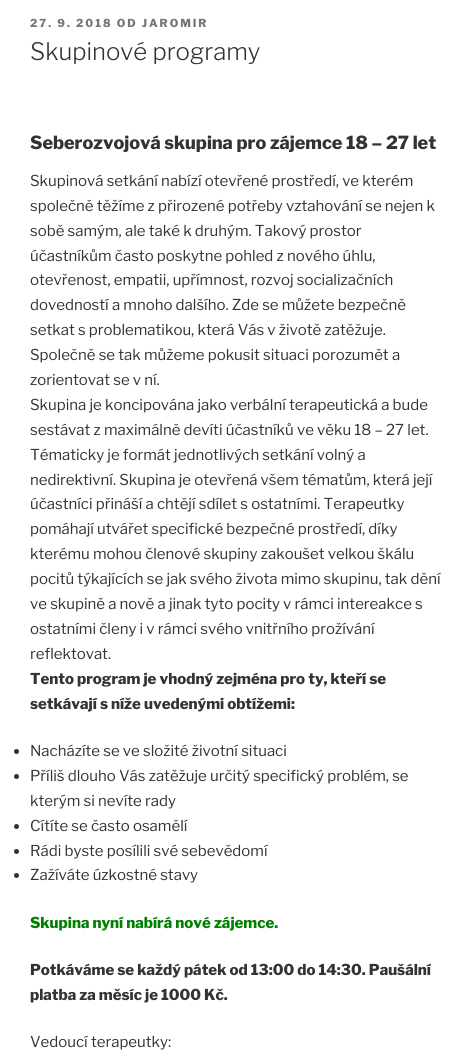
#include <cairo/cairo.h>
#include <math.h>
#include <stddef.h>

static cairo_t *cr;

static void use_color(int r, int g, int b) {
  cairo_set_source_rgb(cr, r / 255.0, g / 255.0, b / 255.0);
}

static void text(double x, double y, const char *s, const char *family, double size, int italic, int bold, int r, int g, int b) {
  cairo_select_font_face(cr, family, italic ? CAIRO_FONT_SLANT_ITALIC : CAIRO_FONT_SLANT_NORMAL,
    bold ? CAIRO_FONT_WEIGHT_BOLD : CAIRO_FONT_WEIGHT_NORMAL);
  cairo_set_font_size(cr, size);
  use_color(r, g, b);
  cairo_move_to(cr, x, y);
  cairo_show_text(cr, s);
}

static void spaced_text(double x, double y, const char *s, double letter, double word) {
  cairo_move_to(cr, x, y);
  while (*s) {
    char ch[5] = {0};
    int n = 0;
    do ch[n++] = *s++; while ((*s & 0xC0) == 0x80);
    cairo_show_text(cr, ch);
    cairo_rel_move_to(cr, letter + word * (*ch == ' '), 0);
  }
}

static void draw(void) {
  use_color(255, 255, 255);
  cairo_paint(cr);
  use_color(51, 51, 51);
  cairo_arc(cr, 16.5, 751.5, 2.5, 0, 2 * M_PI);
  cairo_fill(cr);
  cairo_arc(cr, 16.5, 776.5, 2.5, 0, 2 * M_PI);
  cairo_fill(cr);
  cairo_arc(cr, 16.5, 826.5, 2.5, 0, 2 * M_PI);
  cairo_fill(cr);
  cairo_arc(cr, 16.5, 851.5, 2.5, 0, 2 * M_PI);
  cairo_fill(cr);
  cairo_arc(cr, 16.5, 875.5, 2.5, 0, 2 * M_PI);
  cairo_fill(cr);
  cairo_select_font_face(cr, "Libre Franklin ExtraBold", CAIRO_FONT_SLANT_NORMAL, CAIRO_FONT_WEIGHT_NORMAL);
  cairo_set_font_size(cr, 11);
  use_color(118, 118, 118);
  spaced_text(30, 27, "27. 9. 2018 OD JAROMIR", 2, 0);
  text(30, 60, "Skupinové programy", "Libre Franklin Light", 24, 0, 0, 51, 51, 51);
  text(30, 149, "Seberozvojová skupina pro zájemce 18 – 27 let", "Libre Franklin ExtraBold", 18, 0, 0, 51, 51, 51);
  text(30, 186, "Skupinová setkání nabízí otevřené prostředí, ve kterém", "Libre Franklin", 15, 0, 0, 51, 51, 51);
  text(30, 211, "společně těžíme z přirozené potřeby vztahování se nejen k", "Libre Franklin", 15, 0, 0, 51, 51, 51);
  text(30, 236, "sobě samým, ale také k druhým. Takový prostor", "Libre Franklin", 15, 0, 0, 51, 51, 51);
  text(30, 261, "účastníkům často poskytne pohled z nového úhlu,", "Libre Franklin", 15, 0, 0, 51, 51, 51);
  text(30, 285, "otevřenost, empatii, upřímnost, rozvoj socializačních", "Libre Franklin", 15, 0, 0, 51, 51, 51);
  text(30, 310, "dovedností a mnoho dalšího. Zde se můžete bezpečně", "Libre Franklin", 15, 0, 0, 51, 51, 51);
  text(30, 335, "setkat s problematikou, která Vás v životě zatěžuje.", "Libre Franklin", 15, 0, 0, 51, 51, 51);
  text(30, 360, "Společně se tak můžeme pokusit situaci porozumět a", "Libre Franklin", 15, 0, 0, 51, 51, 51);
  text(30, 385, "zorientovat se v ní.", "Libre Franklin", 15, 0, 0, 51, 51, 51);
  text(30, 410, "Skupina je koncipována jako verbální terapeutická a bude", "Libre Franklin", 15, 0, 0, 51, 51, 51);
  text(30, 435, "sestávat z maximálně devíti účastníků ve věku 18 – 27 let.", "Libre Franklin", 15, 0, 0, 51, 51, 51);
  text(30, 460, "Tématicky je formát jednotlivých setkání volný a", "Libre Franklin", 15, 0, 0, 51, 51, 51);
  text(30, 485, "nedirektivní. Skupina je otevřená všem tématům, která její", "Libre Franklin", 15, 0, 0, 51, 51, 51);
  text(30, 509, "účastníci přináší a chtějí sdílet s ostatními. Terapeutky", "Libre Franklin", 15, 0, 0, 51, 51, 51);
  text(30, 534, "pomáhají utvářet specifické bezpečné prostředí, díky", "Libre Franklin", 15, 0, 0, 51, 51, 51);
  text(30, 559, "kterému mohou členové skupiny zakoušet velkou škálu", "Libre Franklin", 15, 0, 0, 51, 51, 51);
  text(30, 584, "pocitů týkajících se jak svého života mimo skupinu, tak dění", "Libre Franklin", 15, 0, 0, 51, 51, 51);
  text(30, 609, "ve skupině a nově a jinak tyto pocity v rámci intereakce s", "Libre Franklin", 15, 0, 0, 51, 51, 51);
  text(30, 634, "ostatními členy i v rámci svého vnitřního prožívání", "Libre Franklin", 15, 0, 0, 51, 51, 51);
  text(30, 659, "reflektovat.", "Libre Franklin", 15, 0, 0, 51, 51, 51);
  text(30, 684, "Tento program je vhodný zejména pro ty, kteří se", "Libre Franklin ExtraBold", 15, 0, 0, 51, 51, 51);
  text(30, 709, "setkávají s níže uvedenými obtížemi:", "Libre Franklin ExtraBold", 15, 0, 0, 51, 51, 51);
  text(30, 756, "Nacházíte se ve složité životní situaci", "Libre Franklin", 15, 0, 0, 51, 51, 51);
  text(30, 781, "Příliš dlouho Vás zatěžuje určitý specifický problém, se", "Libre Franklin", 15, 0, 0, 51, 51, 51);
  text(30, 806, "kterým si nevíte rady", "Libre Franklin", 15, 0, 0, 51, 51, 51);
  text(30, 831, "Cítíte se často osamělí", "Libre Franklin", 15, 0, 0, 51, 51, 51);
  text(30, 856, "Rádi byste posílili své sebevědomí", "Libre Franklin", 15, 0, 0, 51, 51, 51);
  text(30, 880, "Zažíváte úzkostné stavy", "Libre Franklin", 15, 0, 0, 51, 51, 51);
  text(30, 928, "Skupina nyní nabírá nové zájemce.", "Libre Franklin ExtraBold", 15, 0, 0, 0, 128, 0);
  text(30, 975, "Potkáváme se každý pátek od 13:00 do 14:30. Paušální", "Libre Franklin ExtraBold", 15, 0, 0, 51, 51, 51);
  text(30, 1000, "platba za měsíc je 1000 Kč.", "Libre Franklin ExtraBold", 15, 0, 0, 51, 51, 51);
  text(30, 1047, "Vedoucí terapeutky:", "Libre Franklin", 15, 0, 0, 51, 51, 51);
}

int main(void) {
  cairo_surface_t *surface = cairo_image_surface_create(CAIRO_FORMAT_RGB24, 473, 1053);
  cr = cairo_create(surface);
  cairo_font_options_t *options = cairo_font_options_create();
  cairo_font_options_set_hint_metrics(options, CAIRO_HINT_METRICS_OFF);
  cairo_font_options_set_hint_style(options, CAIRO_HINT_STYLE_NONE);
  cairo_set_font_options(cr, options);
  cairo_set_miter_limit(cr, 4);
  draw();
  cairo_surface_write_to_png(surface, "out.png");
  cairo_font_options_destroy(options);
  cairo_destroy(cr);
  cairo_surface_destroy(surface);
  return 0;
}
